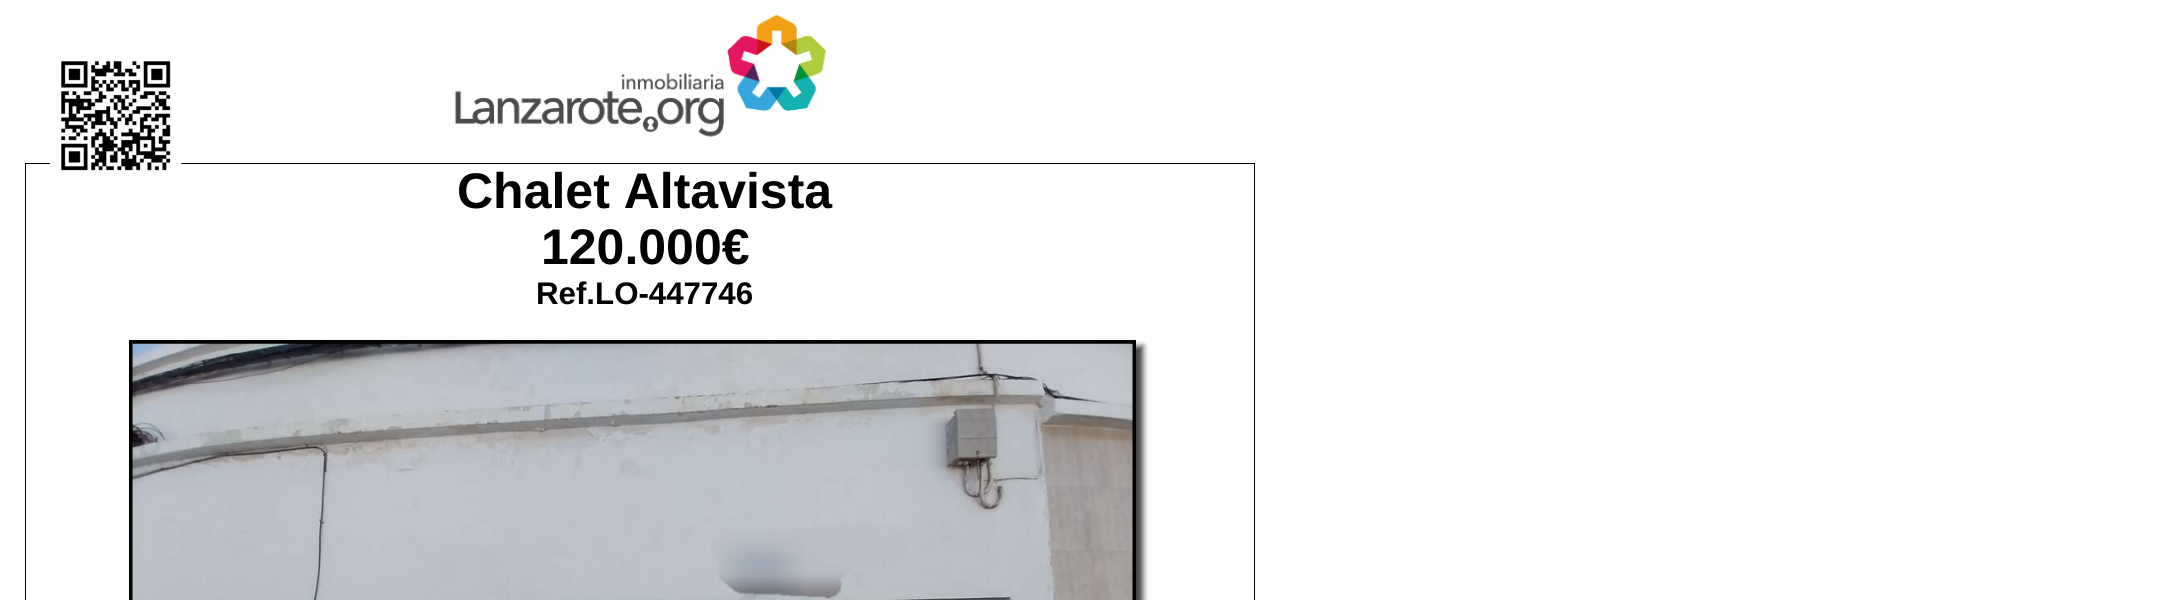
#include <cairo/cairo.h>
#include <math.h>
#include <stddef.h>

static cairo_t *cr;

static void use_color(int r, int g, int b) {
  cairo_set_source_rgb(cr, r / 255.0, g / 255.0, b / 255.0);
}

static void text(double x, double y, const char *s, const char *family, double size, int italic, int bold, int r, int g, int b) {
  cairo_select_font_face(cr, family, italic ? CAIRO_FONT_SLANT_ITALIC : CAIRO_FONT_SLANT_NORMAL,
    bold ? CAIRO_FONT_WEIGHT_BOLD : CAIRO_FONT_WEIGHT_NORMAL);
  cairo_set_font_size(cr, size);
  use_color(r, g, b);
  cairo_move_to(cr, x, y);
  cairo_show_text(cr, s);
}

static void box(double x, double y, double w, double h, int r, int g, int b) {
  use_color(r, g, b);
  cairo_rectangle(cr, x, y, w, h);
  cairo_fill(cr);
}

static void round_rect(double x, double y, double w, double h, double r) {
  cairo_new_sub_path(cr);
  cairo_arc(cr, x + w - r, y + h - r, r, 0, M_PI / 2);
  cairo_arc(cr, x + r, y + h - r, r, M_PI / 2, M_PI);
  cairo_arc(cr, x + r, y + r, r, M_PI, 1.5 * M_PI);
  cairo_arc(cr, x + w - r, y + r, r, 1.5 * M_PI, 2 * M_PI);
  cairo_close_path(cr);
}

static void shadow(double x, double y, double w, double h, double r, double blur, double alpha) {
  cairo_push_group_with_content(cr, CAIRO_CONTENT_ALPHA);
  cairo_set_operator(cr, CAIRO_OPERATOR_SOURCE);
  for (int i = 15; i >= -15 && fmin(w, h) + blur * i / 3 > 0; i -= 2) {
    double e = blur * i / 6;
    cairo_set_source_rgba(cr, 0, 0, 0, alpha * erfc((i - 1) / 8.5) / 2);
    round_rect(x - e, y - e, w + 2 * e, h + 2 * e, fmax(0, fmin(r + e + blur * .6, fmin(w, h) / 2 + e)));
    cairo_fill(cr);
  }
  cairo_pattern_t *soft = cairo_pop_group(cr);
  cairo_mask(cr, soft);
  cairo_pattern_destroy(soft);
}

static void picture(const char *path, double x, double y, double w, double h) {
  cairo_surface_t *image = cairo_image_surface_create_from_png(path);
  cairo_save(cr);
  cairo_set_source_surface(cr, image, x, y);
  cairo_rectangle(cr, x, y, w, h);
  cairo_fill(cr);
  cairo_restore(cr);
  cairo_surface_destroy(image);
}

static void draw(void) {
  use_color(255, 255, 255);
  cairo_paint(cr);
  cairo_rectangle(cr, 25.5, 163.5, 1229, 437);
  use_color(0, 0, 0);
  cairo_set_line_width(cr, 1);
  cairo_stroke(cr);
  box(50, 163, 131, 1, 255, 255, 255);
  picture("img_01.png", 61, 61, 121, 110);
  picture("img_02.png", 455, 14, 372, 123);
  use_color(68, 68, 68);
  shadow(135, 346, 1008, 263, 0, 3, 1);
  cairo_rectangle(cr, 131, 342, 1003, 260);
  use_color(0, 0, 0);
  cairo_set_line_width(cr, 4);
  cairo_stroke(cr);
  picture("img_03.png", 132, 343, 1001, 257);
  text(457, 208, "Chalet Altavista", "Liberation Sans", 50, 0, 1, 0, 0, 0);
  text(541, 264, "120.000€", "Liberation Sans", 50, 0, 1, 0, 0, 0);
  text(536, 304, "Ref.LO-447746", "Liberation Sans", 31.25, 0, 1, 0, 0, 0);
}

int main(void) {
  cairo_surface_t *surface = cairo_image_surface_create(CAIRO_FORMAT_RGB24, 2174, 600);
  cr = cairo_create(surface);
  cairo_font_options_t *options = cairo_font_options_create();
  cairo_font_options_set_hint_metrics(options, CAIRO_HINT_METRICS_OFF);
  cairo_font_options_set_hint_style(options, CAIRO_HINT_STYLE_NONE);
  cairo_set_font_options(cr, options);
  cairo_set_miter_limit(cr, 4);
  draw();
  cairo_surface_write_to_png(surface, "out.png");
  cairo_font_options_destroy(options);
  cairo_destroy(cr);
  cairo_surface_destroy(surface);
  return 0;
}
